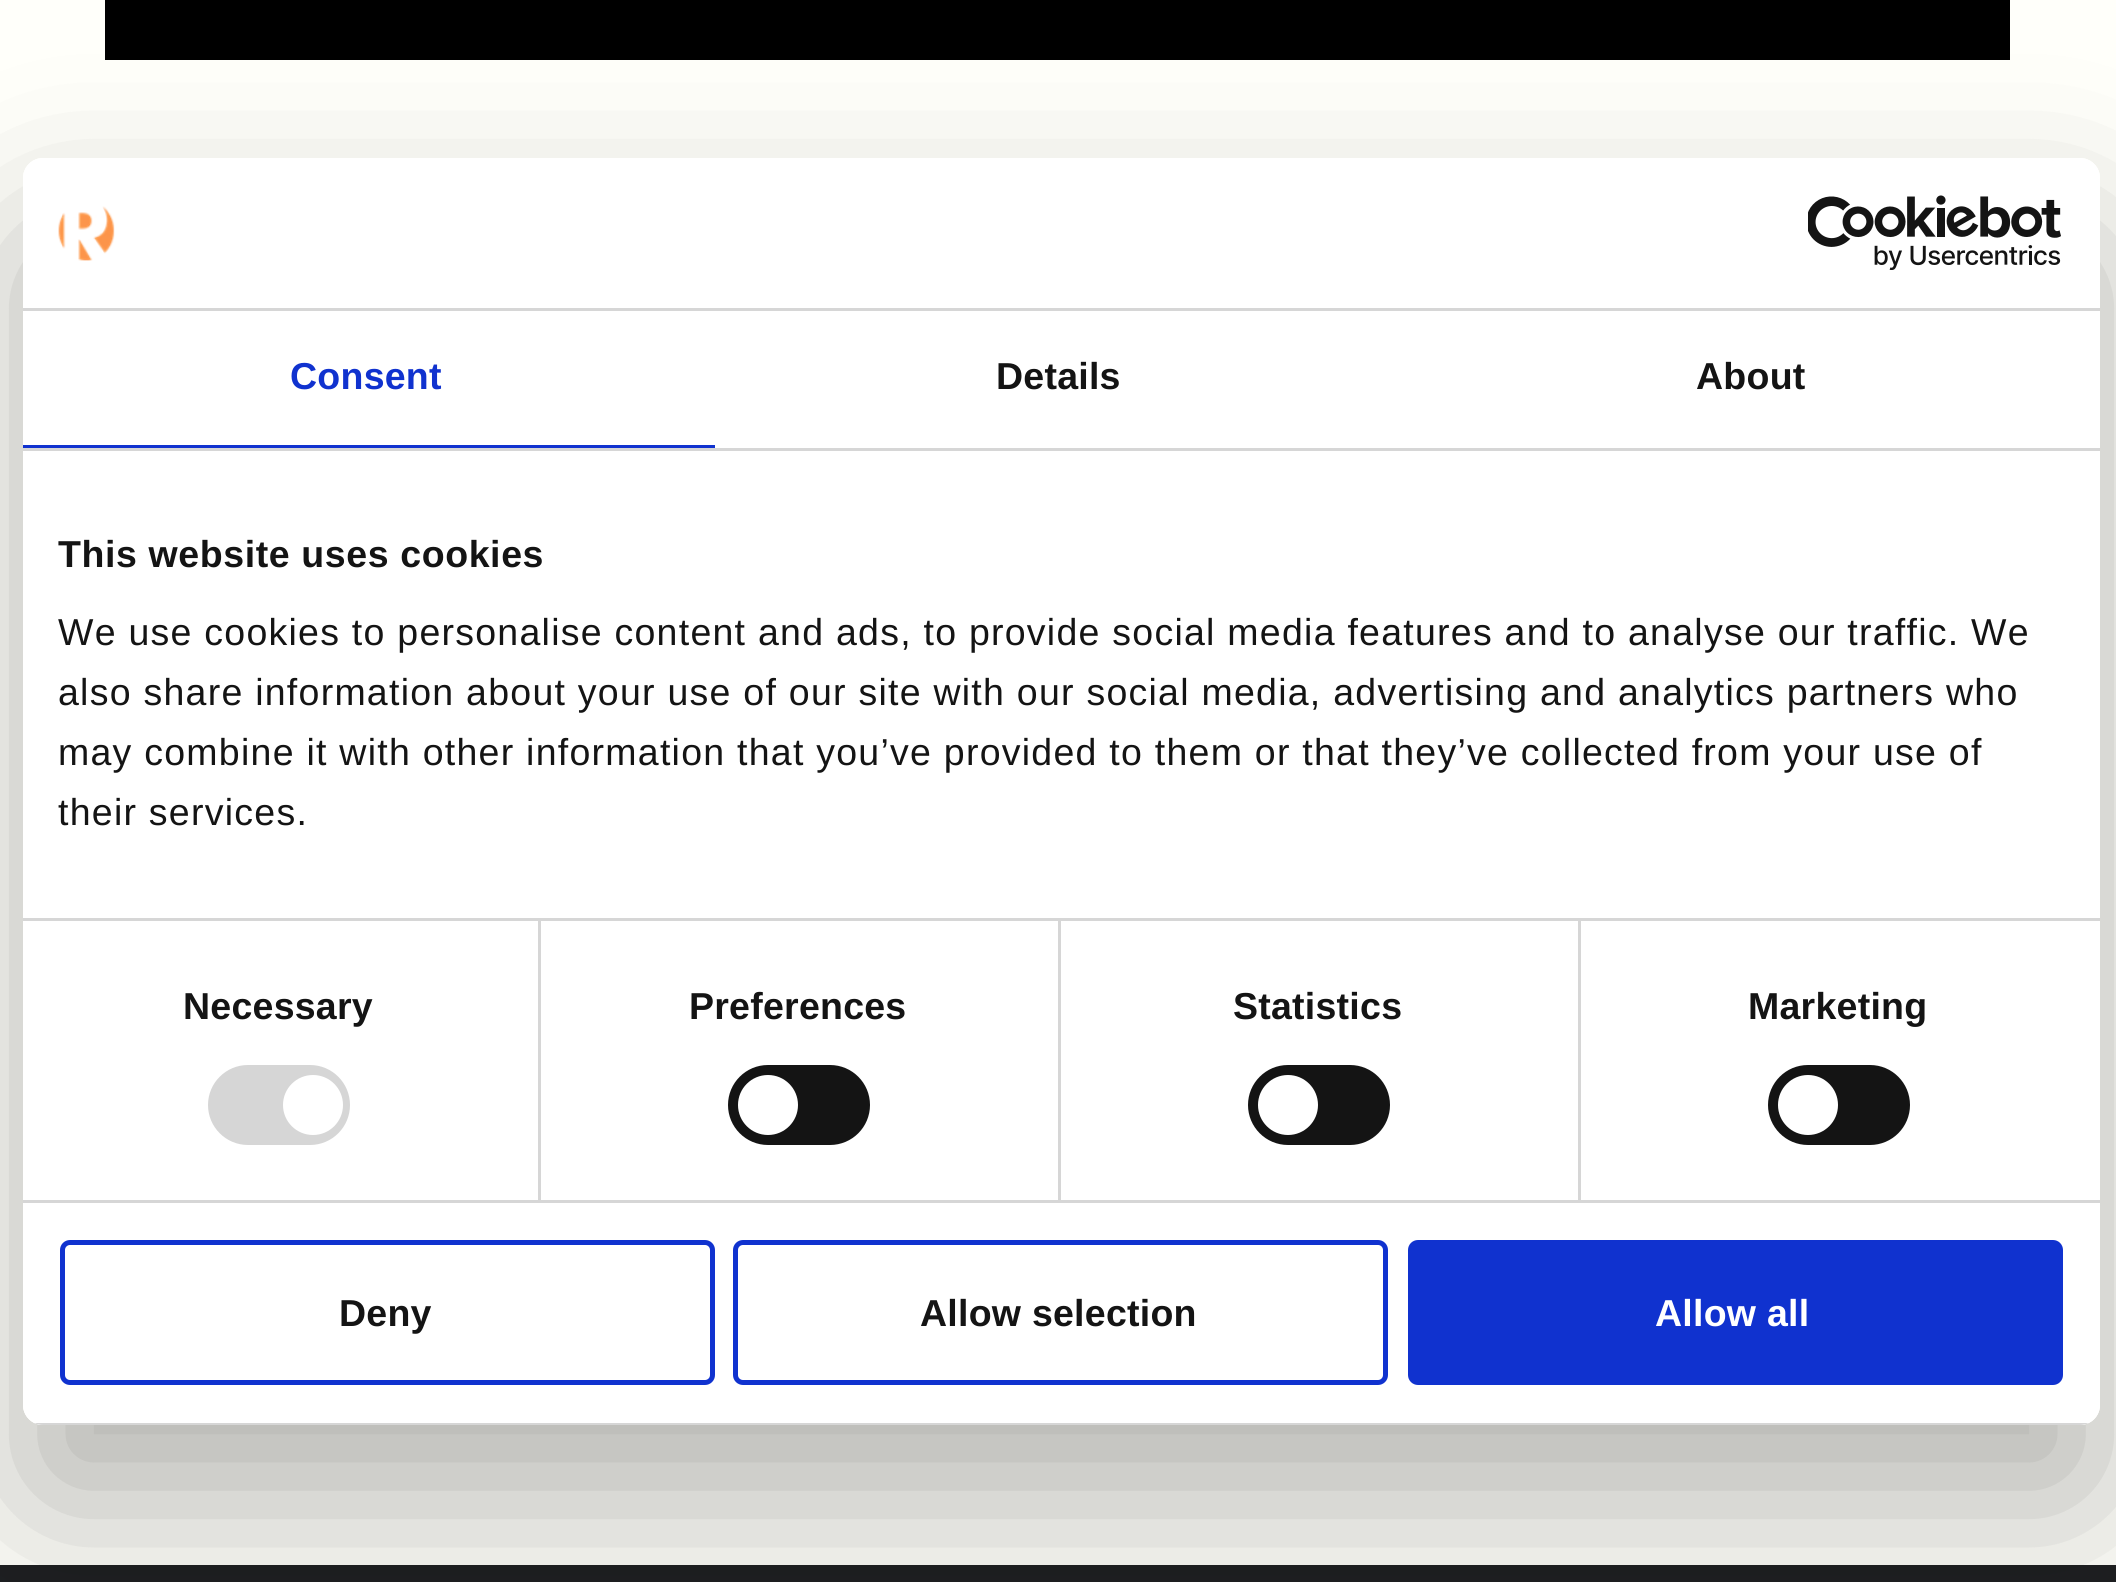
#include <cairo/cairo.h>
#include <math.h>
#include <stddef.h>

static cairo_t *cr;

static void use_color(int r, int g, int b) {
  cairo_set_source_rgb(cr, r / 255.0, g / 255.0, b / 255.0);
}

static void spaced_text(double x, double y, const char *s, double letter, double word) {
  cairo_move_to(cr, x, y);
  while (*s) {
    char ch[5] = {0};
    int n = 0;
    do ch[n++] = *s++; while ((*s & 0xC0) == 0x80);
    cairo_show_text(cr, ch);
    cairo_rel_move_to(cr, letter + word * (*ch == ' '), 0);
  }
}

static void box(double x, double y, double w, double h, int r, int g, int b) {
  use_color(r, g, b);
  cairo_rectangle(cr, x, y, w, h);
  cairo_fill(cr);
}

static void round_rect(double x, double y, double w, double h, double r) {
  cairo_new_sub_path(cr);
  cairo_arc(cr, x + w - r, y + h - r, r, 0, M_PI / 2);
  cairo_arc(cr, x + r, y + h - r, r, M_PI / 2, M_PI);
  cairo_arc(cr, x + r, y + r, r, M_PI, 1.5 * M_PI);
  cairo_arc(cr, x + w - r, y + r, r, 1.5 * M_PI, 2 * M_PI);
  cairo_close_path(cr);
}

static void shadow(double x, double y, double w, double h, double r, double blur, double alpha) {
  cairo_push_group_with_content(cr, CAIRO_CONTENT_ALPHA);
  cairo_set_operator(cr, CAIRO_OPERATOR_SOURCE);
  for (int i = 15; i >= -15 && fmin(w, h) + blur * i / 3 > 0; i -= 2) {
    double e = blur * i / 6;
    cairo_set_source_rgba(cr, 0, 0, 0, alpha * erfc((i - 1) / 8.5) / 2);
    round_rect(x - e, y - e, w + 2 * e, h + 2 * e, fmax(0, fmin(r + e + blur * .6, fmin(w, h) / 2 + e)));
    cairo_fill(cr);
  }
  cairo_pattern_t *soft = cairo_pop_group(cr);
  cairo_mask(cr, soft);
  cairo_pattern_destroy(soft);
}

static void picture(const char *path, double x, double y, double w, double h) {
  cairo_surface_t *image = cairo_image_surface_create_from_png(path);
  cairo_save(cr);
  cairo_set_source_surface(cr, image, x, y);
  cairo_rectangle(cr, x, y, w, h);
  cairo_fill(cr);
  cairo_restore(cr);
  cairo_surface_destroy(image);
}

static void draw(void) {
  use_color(255, 255, 250);
  cairo_paint(cr);
  box(105, 0, 1905, 60, 0, 0, 0);
  box(0, 1565, 2116, 17, 30, 32, 34);
  cairo_save(cr);
  cairo_set_fill_rule(cr, CAIRO_FILL_RULE_EVEN_ODD);
  cairo_new_path(cr);
  cairo_move_to(cr, 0, 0);
  cairo_line_to(cr, 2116, 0);
  cairo_line_to(cr, 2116, 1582);
  cairo_line_to(cr, 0, 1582);
  cairo_close_path(cr);
  cairo_move_to(cr, 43, 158);
  cairo_line_to(cr, 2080, 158);
  cairo_curve_to(cr, 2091, 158, 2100, 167, 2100, 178);
  cairo_line_to(cr, 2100, 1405);
  cairo_curve_to(cr, 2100, 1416, 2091, 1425, 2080, 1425);
  cairo_line_to(cr, 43, 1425);
  cairo_curve_to(cr, 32, 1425, 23, 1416, 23, 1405);
  cairo_line_to(cr, 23, 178);
  cairo_curve_to(cr, 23, 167, 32, 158, 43, 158);
  cairo_close_path(cr);
  cairo_clip(cr);
  use_color(0, 0, 0);
  shadow(23, 238, 2077, 1267, 20, 85, 0.3);
  cairo_restore(cr);
  use_color(255, 255, 255);
  round_rect(23, 158, 2077, 1267, 20);
  cairo_fill(cr);
  box(23, 308, 2077, 3, 214, 214, 214);
  picture("img_01.png", 58, 206, 57, 55);
  picture("img_02.png", 1808, 195, 253, 75);
  box(23, 448, 2077, 3, 214, 214, 214);
  box(23, 445, 692, 3, 16, 50, 207);
  box(538, 920, 3, 280, 214, 214, 214);
  box(1058, 920, 3, 280, 214, 214, 214);
  box(1578, 920, 3, 280, 214, 214, 214);
  box(23, 918, 2077, 3, 214, 214, 214);
  box(23, 1200, 2077, 3, 214, 214, 214);
  round_rect(208, 1065, 142, 80, 40);
  cairo_fill(cr);
  use_color(255, 255, 255);
  cairo_arc(cr, 313, 1105, 30, 0, 2 * M_PI);
  cairo_fill(cr);
  use_color(20, 20, 20);
  round_rect(728, 1065, 142, 80, 40);
  cairo_fill(cr);
  use_color(255, 255, 255);
  cairo_arc(cr, 768, 1105, 30, 0, 2 * M_PI);
  cairo_fill(cr);
  use_color(20, 20, 20);
  round_rect(1248, 1065, 142, 80, 40);
  cairo_fill(cr);
  use_color(255, 255, 255);
  cairo_arc(cr, 1288, 1105, 30, 0, 2 * M_PI);
  cairo_fill(cr);
  use_color(20, 20, 20);
  round_rect(1768, 1065, 142, 80, 40);
  cairo_fill(cr);
  use_color(255, 255, 255);
  cairo_arc(cr, 1808, 1105, 30, 0, 2 * M_PI);
  cairo_fill(cr);
  cairo_save(cr);
  round_rect(23, 158, 2077, 1267, 20);
  cairo_clip(cr);
  box(34, 1423, 2055, 2, 214, 214, 214);
  cairo_restore(cr);
  round_rect(62.5, 1242.5, 650, 140, 7.5);
  use_color(16, 50, 207);
  cairo_set_line_width(cr, 5);
  cairo_stroke(cr);
  round_rect(735.5, 1242.5, 650, 140, 7.5);
  cairo_stroke(cr);
  round_rect(1410.5, 1242.5, 650, 140, 7.5);
  cairo_fill_preserve(cr);
  cairo_stroke(cr);
  cairo_select_font_face(cr, "Liberation Sans", CAIRO_FONT_SLANT_NORMAL, CAIRO_FONT_WEIGHT_BOLD);
  cairo_set_font_size(cr, 37.5);
  spaced_text(290, 389, "Consent", 0.25, 0);
  use_color(20, 20, 20);
  spaced_text(996, 389, "Details", 0.25, 0);
  spaced_text(1696, 389, "About", 0.25, 0);
  spaced_text(58, 567, "This website uses cookies", 0.6, 0);
  cairo_select_font_face(cr, "Liberation Sans", CAIRO_FONT_SLANT_NORMAL, CAIRO_FONT_WEIGHT_NORMAL);
  spaced_text(58, 645, "We use cookies to personalise content and ads, to provide social media features and to analyse our traffic. We", 1.25, 0);
  spaced_text(58, 705, "also share information about your use of our site with our social media, advertising and analytics partners who", 1.25, 0);
  spaced_text(58, 765, "may combine it with other information that you’ve provided to them or that they’ve collected from your use of", 1.25, 0);
  spaced_text(58, 825, "their services.", 1.25, 0);
  cairo_select_font_face(cr, "Liberation Sans", CAIRO_FONT_SLANT_NORMAL, CAIRO_FONT_WEIGHT_BOLD);
  spaced_text(183, 1019, "Necessary", 0.25, 0);
  spaced_text(689, 1019, "Preferences", 0.25, 0);
  spaced_text(1233, 1019, "Statistics", 0.25, 0);
  spaced_text(1748, 1019, "Marketing", 0.25, 0);
  spaced_text(339, 1326, "Deny", 0.25, 0);
  spaced_text(920, 1326, "Allow selection", 0.25, 0);
  use_color(255, 255, 255);
  spaced_text(1655, 1326, "Allow all", 0.25, 0);
}

int main(void) {
  cairo_surface_t *surface = cairo_image_surface_create(CAIRO_FORMAT_RGB24, 2116, 1582);
  cr = cairo_create(surface);
  cairo_font_options_t *options = cairo_font_options_create();
  cairo_font_options_set_hint_metrics(options, CAIRO_HINT_METRICS_OFF);
  cairo_font_options_set_hint_style(options, CAIRO_HINT_STYLE_NONE);
  cairo_set_font_options(cr, options);
  cairo_set_miter_limit(cr, 4);
  draw();
  cairo_surface_write_to_png(surface, "out.png");
  cairo_font_options_destroy(options);
  cairo_destroy(cr);
  cairo_surface_destroy(surface);
  return 0;
}
